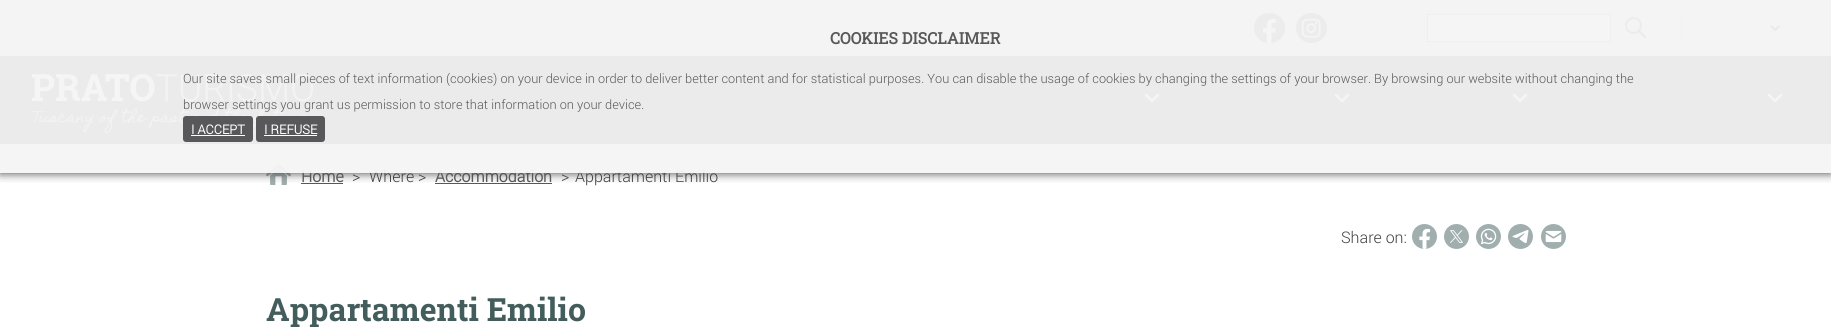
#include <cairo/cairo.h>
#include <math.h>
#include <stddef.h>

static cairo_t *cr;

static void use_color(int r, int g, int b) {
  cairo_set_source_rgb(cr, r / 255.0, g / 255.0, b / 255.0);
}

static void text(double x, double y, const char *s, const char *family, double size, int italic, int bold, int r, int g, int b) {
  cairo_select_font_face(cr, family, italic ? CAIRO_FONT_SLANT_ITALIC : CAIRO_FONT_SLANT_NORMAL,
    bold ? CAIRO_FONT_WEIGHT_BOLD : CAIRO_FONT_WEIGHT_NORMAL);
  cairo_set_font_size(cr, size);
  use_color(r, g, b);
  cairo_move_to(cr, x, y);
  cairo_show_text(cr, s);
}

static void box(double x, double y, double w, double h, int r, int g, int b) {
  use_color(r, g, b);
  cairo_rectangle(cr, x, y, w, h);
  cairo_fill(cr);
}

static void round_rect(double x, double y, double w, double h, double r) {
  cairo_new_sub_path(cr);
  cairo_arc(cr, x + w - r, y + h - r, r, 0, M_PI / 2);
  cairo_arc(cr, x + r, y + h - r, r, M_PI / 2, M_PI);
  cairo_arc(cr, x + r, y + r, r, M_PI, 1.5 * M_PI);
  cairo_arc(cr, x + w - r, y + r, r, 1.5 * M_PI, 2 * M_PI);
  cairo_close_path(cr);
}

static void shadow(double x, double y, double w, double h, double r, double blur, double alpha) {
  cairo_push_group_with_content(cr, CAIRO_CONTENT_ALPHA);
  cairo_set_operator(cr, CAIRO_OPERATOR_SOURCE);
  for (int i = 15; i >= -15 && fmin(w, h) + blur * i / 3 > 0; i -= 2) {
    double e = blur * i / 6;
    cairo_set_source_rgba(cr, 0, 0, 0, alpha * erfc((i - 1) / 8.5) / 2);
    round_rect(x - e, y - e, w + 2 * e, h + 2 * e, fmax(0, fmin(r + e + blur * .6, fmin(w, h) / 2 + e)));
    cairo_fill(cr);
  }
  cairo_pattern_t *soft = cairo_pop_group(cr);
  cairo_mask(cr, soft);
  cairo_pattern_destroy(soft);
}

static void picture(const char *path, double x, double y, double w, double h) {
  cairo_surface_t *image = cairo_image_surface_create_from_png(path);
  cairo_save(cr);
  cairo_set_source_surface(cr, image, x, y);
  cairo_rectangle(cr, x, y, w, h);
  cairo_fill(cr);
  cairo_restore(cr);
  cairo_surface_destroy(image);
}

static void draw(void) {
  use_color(255, 255, 255);
  cairo_paint(cr);
  box(0, 0, 1831, 56, 229, 229, 230);
  use_color(62, 61, 64);
  round_rect(1254, 13, 31, 30, 15);
  cairo_fill(cr);
  picture("img_01.png", 1262, 18, 14, 25);
  round_rect(1296, 13, 31, 30, 15);
  cairo_fill(cr);
  picture("img_02.png", 1301, 18, 20, 20);
  box(1355, 11, 1, 34, 212, 212, 213);
  use_color(255, 255, 255);
  cairo_rectangle(cr, 1427.5, 14.5, 183, 27);
  cairo_fill_preserve(cr);
  use_color(138, 138, 140);
  cairo_set_line_width(cr, 1);
  cairo_stroke(cr);
  picture("img_03.png", 1625, 17, 21, 22);
  box(1680, 11, 1, 34, 215, 215, 216);
  cairo_new_path(cr);
  cairo_move_to(cr, 1771, 26);
  cairo_line_to(cr, 1775, 30);
  cairo_line_to(cr, 1779, 26);
  use_color(0, 0, 0);
  cairo_set_line_width(cr, 2);
  cairo_stroke(cr);
  box(0, 56, 1831, 88, 36, 53, 53);
  picture("img_04.png", 32, 74, 281, 60);
  cairo_new_path(cr);
  cairo_move_to(cr, 1146, 95);
  cairo_line_to(cr, 1152, 101);
  cairo_move_to(cr, 1158, 95);
  cairo_line_to(cr, 1152, 101);
  use_color(255, 255, 255);
  cairo_set_line_width(cr, 2.4);
  cairo_set_line_cap(cr, CAIRO_LINE_CAP_ROUND);
  cairo_set_line_join(cr, CAIRO_LINE_JOIN_ROUND);
  cairo_stroke(cr);
  cairo_new_path(cr);
  cairo_move_to(cr, 1336, 95);
  cairo_line_to(cr, 1342, 101);
  cairo_move_to(cr, 1348, 95);
  cairo_line_to(cr, 1342, 101);
  cairo_stroke(cr);
  cairo_new_path(cr);
  cairo_move_to(cr, 1514, 95);
  cairo_line_to(cr, 1520, 101);
  cairo_move_to(cr, 1526, 95);
  cairo_line_to(cr, 1520, 101);
  cairo_stroke(cr);
  cairo_new_path(cr);
  cairo_move_to(cr, 1769, 95);
  cairo_line_to(cr, 1775, 101);
  cairo_move_to(cr, 1781, 95);
  cairo_line_to(cr, 1775, 101);
  cairo_stroke(cr);
  picture("img_05.png", 266, 164, 25, 21);
  box(301, 183, 42, 1, 88, 88, 90);
  box(435, 183, 117, 1, 88, 88, 90);
  cairo_save(cr);
  cairo_rectangle(cr, 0, 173, 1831, 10);
  cairo_clip(cr);
  use_color(62, 61, 64);
  shadow(0, 0, 1831, 173, 0, 5, 1);
  cairo_restore(cr);
  use_color(161, 174, 174);
  cairo_arc(cr, 1424.5, 236.5, 12.5, 0, 2 * M_PI);
  cairo_fill(cr);
  picture("img_06.png", 1419, 228, 12, 21);
  cairo_arc(cr, 1456.5, 236.5, 12.5, 0, 2 * M_PI);
  cairo_fill(cr);
  picture("img_07.png", 1450, 230, 13, 13);
  cairo_arc(cr, 1488.5, 236.5, 12.5, 0, 2 * M_PI);
  cairo_fill(cr);
  picture("img_08.png", 1480, 228, 17, 17);
  cairo_arc(cr, 1520.5, 236.5, 12.5, 0, 2 * M_PI);
  cairo_fill(cr);
  picture("img_09.png", 1512, 230, 17, 14);
  cairo_arc(cr, 1553.5, 236.5, 12.5, 0, 2 * M_PI);
  cairo_fill(cr);
  picture("img_10.png", 1545, 230, 17, 13);
  text(301, 182, "Home", "Roboto", 16, 0, 1, 88, 88, 90);
  text(352, 182, ">", "Roboto Light", 16, 0, 0, 62, 61, 64);
  text(369, 182, "Where >", "Roboto Light", 16, 0, 0, 62, 61, 64);
  text(435, 182, "Accommodation", "Roboto", 16, 0, 1, 88, 88, 90);
  text(561, 182, ">", "Roboto Light", 16, 0, 0, 62, 61, 64);
  text(575, 182, "Appartamenti Emilio", "Roboto Light", 16, 0, 0, 62, 61, 64);
  cairo_set_source_rgba(cr, 0.961, 0.961, 0.961, 0.95);
  cairo_rectangle(cr, 0, 0, 1831, 173);
  cairo_fill(cr);
  use_color(88, 88, 90);
  round_rect(256, 116, 69, 26, 3);
  cairo_fill(cr);
  text(264, 134, "I REFUSE", "Roboto", 12.8, 0, 1, 255, 255, 255);
  box(264, 135, 53, 1, 255, 255, 255);
  use_color(88, 88, 90);
  round_rect(183, 116, 70, 26, 3);
  cairo_fill(cr);
  text(191, 134, "I ACCEPT", "Roboto", 12.8, 0, 1, 255, 255, 255);
  box(191, 135, 54, 1, 255, 255, 255);
  text(183, 109, "browser settings you grant us permission to store that information on your device.", "Roboto Light", 12.8, 0, 0, 88, 88, 90);
  text(183, 83, "Our site saves small pieces of text information (cookies) on your device in order to deliver better content and for statistical purposes. You can disable the usage of cookies by changing the settings of your browser. By browsing our website without changing the", "Roboto Light", 12.8, 0, 0, 88, 88, 90);
  text(830, 44, "COOKIES DISCLAIMER", "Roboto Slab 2", 16, 0, 1, 88, 88, 90);
  text(1341, 243, "Share on:", "Roboto Light", 16, 0, 0, 62, 61, 64);
  text(266, 321, "Appartamenti Emilio", "Roboto Slab", 32, 0, 1, 67, 93, 92);
}

int main(void) {
  cairo_surface_t *surface = cairo_image_surface_create(CAIRO_FORMAT_RGB24, 1831, 327);
  cr = cairo_create(surface);
  cairo_font_options_t *options = cairo_font_options_create();
  cairo_font_options_set_hint_metrics(options, CAIRO_HINT_METRICS_OFF);
  cairo_font_options_set_hint_style(options, CAIRO_HINT_STYLE_NONE);
  cairo_set_font_options(cr, options);
  cairo_set_miter_limit(cr, 4);
  draw();
  cairo_surface_write_to_png(surface, "out.png");
  cairo_font_options_destroy(options);
  cairo_destroy(cr);
  cairo_surface_destroy(surface);
  return 0;
}
